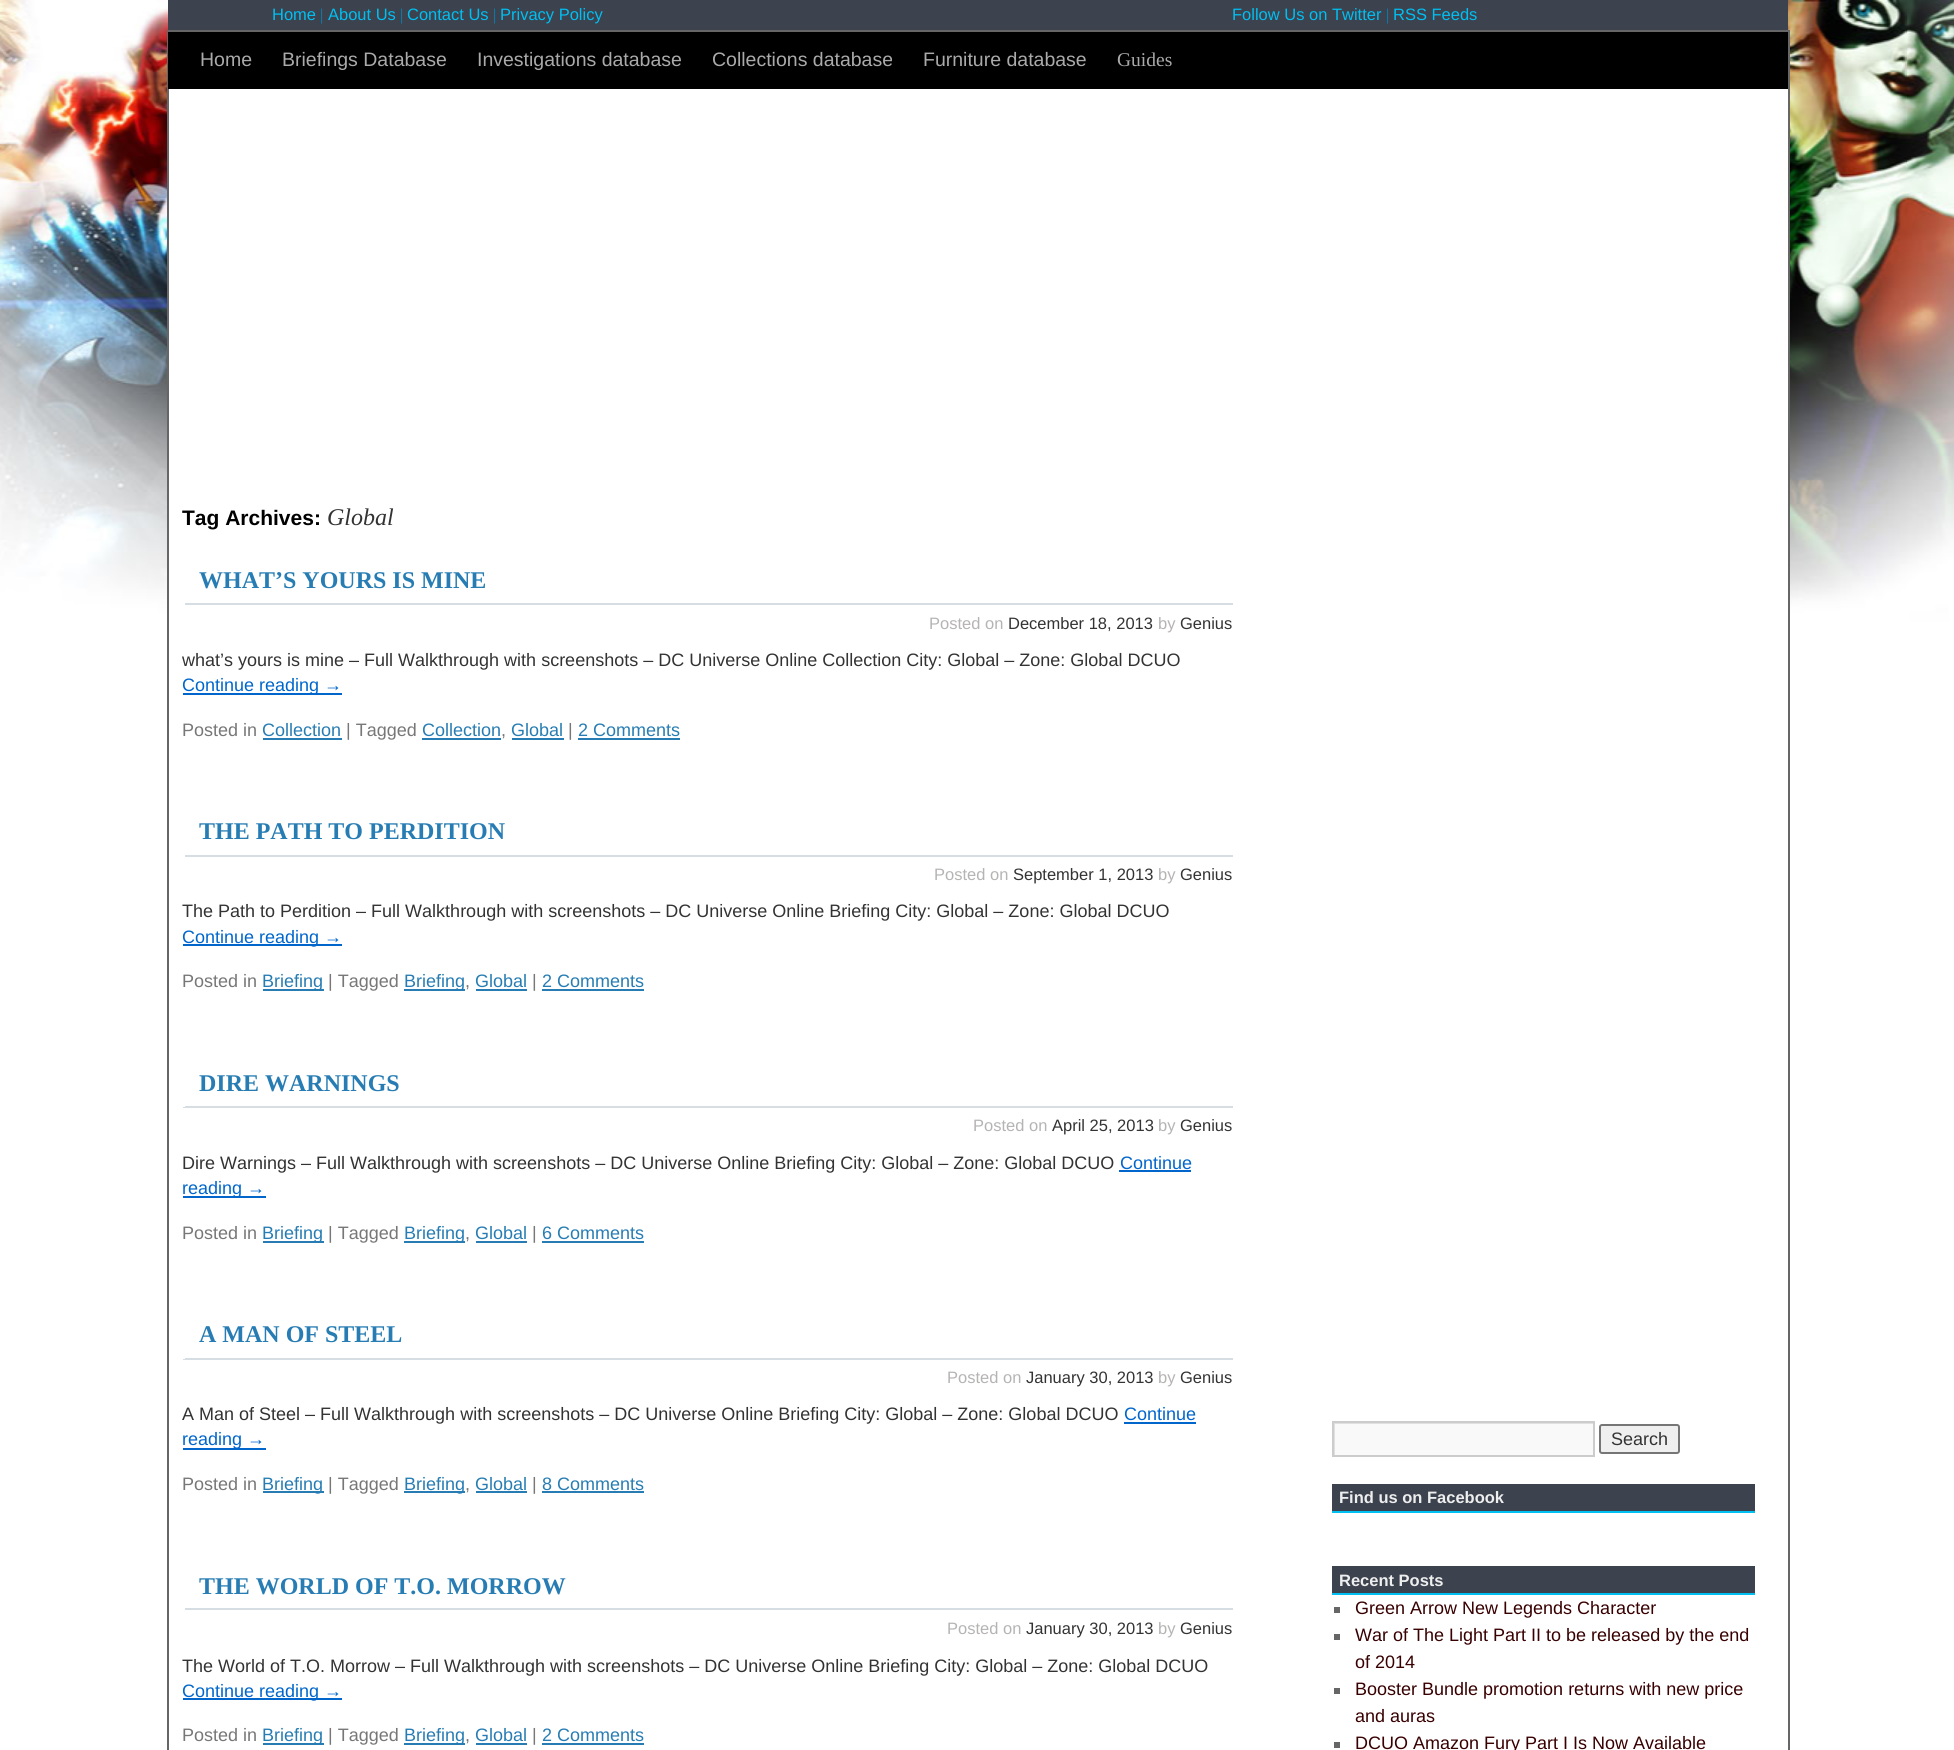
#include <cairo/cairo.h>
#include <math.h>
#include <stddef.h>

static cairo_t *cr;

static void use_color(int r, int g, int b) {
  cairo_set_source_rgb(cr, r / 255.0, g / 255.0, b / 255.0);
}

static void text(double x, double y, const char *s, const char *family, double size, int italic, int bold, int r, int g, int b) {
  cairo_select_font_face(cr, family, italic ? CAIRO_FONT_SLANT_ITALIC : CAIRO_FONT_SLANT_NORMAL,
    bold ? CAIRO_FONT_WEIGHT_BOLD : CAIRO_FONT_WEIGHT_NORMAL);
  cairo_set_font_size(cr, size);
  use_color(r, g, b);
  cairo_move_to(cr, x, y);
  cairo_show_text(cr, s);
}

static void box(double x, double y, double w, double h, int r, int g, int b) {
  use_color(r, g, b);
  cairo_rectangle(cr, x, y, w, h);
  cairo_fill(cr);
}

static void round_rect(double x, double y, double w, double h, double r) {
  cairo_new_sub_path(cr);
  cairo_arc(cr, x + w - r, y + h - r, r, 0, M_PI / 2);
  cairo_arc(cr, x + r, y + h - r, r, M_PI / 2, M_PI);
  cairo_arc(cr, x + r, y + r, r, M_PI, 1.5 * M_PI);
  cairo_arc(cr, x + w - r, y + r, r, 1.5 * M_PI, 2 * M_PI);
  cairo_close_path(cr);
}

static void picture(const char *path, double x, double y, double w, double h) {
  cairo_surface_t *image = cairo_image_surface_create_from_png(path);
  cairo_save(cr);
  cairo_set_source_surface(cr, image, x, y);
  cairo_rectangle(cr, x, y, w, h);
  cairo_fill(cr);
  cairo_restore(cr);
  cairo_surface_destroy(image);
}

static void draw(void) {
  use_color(255, 255, 255);
  cairo_paint(cr);
  picture("img_01.png", 0, 0, 1954, 622);
  box(168, 0, 1620, 30, 60, 66, 78);
  box(169, 89, 1619, 533, 255, 255, 255);
  box(167, 30, 1623, 2, 102, 102, 102);
  box(1788, 30, 2, 1720, 102, 102, 102);
  box(167, 30, 2, 1720, 102, 102, 102);
  box(168, 32, 1620, 57, 0, 0, 0);
  box(183, 603, 1050, 2, 215, 222, 227);
  box(183, 603, 2, 2, 255, 255, 255);
  box(183, 693, 159, 2, 0, 102, 204);
  box(263, 738, 79, 2, 39, 125, 179);
  box(422, 738, 79, 2, 39, 125, 179);
  box(512, 738, 52, 2, 39, 125, 179);
  box(578, 738, 102, 2, 39, 125, 179);
  box(183, 855, 1050, 2, 215, 222, 227);
  box(183, 855, 2, 2, 255, 255, 255);
  box(183, 944, 159, 2, 0, 102, 204);
  box(263, 989, 61, 2, 39, 125, 179);
  box(404, 989, 61, 2, 39, 125, 179);
  box(476, 989, 51, 2, 39, 125, 179);
  box(542, 989, 102, 2, 39, 125, 179);
  box(183, 1106, 1050, 2, 215, 222, 227);
  box(183, 1106, 2, 1, 255, 255, 255);
  box(1119, 1170, 72, 2, 0, 102, 204);
  box(183, 1196, 83, 2, 0, 102, 204);
  box(263, 1241, 61, 2, 39, 125, 179);
  box(404, 1241, 61, 2, 39, 125, 179);
  box(476, 1241, 51, 2, 39, 125, 179);
  box(542, 1241, 102, 2, 39, 125, 179);
  box(183, 1358, 1050, 2, 215, 222, 227);
  box(183, 1358, 2, 1, 255, 255, 255);
  box(1124, 1422, 72, 2, 0, 102, 204);
  box(183, 1448, 83, 2, 0, 102, 204);
  box(263, 1491, 61, 2, 39, 125, 179);
  box(404, 1491, 61, 2, 39, 125, 179);
  box(476, 1491, 51, 2, 39, 125, 179);
  box(542, 1491, 102, 2, 39, 125, 179);
  box(183, 1608, 1050, 2, 215, 222, 227);
  box(183, 1608, 2, 2, 255, 255, 255);
  box(183, 1698, 159, 2, 0, 102, 204);
  box(263, 1743, 61, 2, 39, 125, 179);
  box(404, 1743, 61, 2, 39, 125, 179);
  box(476, 1743, 51, 2, 39, 125, 179);
  box(542, 1743, 102, 2, 39, 125, 179);
  box(1335, 1424, 258, 31, 249, 249, 249);
  cairo_save(cr);
  cairo_rectangle(cr, 1334, 1422, 259, 33);
  cairo_clip(cr);
  use_color(224, 224, 224);
  cairo_set_fill_rule(cr, CAIRO_FILL_RULE_EVEN_ODD);
  cairo_new_path(cr);
  cairo_move_to(cr, 1185, 1274);
  cairo_line_to(cr, 1742, 1274);
  cairo_line_to(cr, 1742, 1604);
  cairo_line_to(cr, 1185, 1604);
  cairo_close_path(cr);
  cairo_move_to(cr, 1335, 1424);
  cairo_line_to(cr, 1594, 1424);
  cairo_line_to(cr, 1594, 1456);
  cairo_line_to(cr, 1335, 1456);
  cairo_close_path(cr);
  cairo_fill(cr);
  cairo_restore(cr);
  cairo_rectangle(cr, 1333, 1422, 261, 34);
  use_color(204, 204, 204);
  cairo_stroke(cr);
  use_color(239, 239, 239);
  round_rect(1600, 1425, 79, 28, 2);
  cairo_fill_preserve(cr);
  use_color(118, 118, 118);
  cairo_stroke(cr);
  box(1332, 1484, 423, 27, 60, 66, 78);
  box(1332, 1511, 423, 2, 0, 191, 241);
  box(1332, 1566, 423, 27, 60, 66, 78);
  box(1332, 1593, 423, 2, 0, 191, 241);
  box(1334, 1607, 6, 6, 102, 102, 102);
  box(1334, 1634, 6, 6, 102, 102, 102);
  box(1334, 1688, 6, 6, 102, 102, 102);
  box(1334, 1742, 6, 6, 102, 102, 102);
  text(272, 20, "Home", "Liberation Sans", 16.5, 0, 0, 0, 191, 241);
  text(320, 20, "|", "Liberation Serif", 16.5, 0, 0, 1, 135, 189);
  text(328, 20, "About Us", "Liberation Sans", 16.5, 0, 0, 0, 191, 241);
  text(400, 20, "|", "Liberation Serif", 16.5, 0, 0, 1, 135, 189);
  text(407, 20, "Contact Us", "Liberation Sans", 16.5, 0, 0, 0, 191, 241);
  text(493, 20, "|", "Liberation Serif", 16.5, 0, 0, 1, 135, 189);
  text(500, 20, "Privacy Policy", "Liberation Sans", 16.5, 0, 0, 0, 191, 241);
  text(1232, 20, "Follow Us on Twitter", "Liberation Sans", 16.5, 0, 0, 0, 191, 241);
  text(1386, 20, "|", "Liberation Serif", 16.5, 0, 0, 1, 135, 189);
  text(1393, 20, "RSS Feeds", "Liberation Sans", 16.5, 0, 0, 0, 191, 241);
  text(200, 66, "Home", "Liberation Sans", 19.5, 0, 0, 170, 170, 170);
  text(282, 66, "Briefings Database", "Liberation Sans", 19.5, 0, 0, 170, 170, 170);
  text(477, 66, "Investigations database", "Liberation Sans", 19.5, 0, 0, 170, 170, 170);
  text(712, 66, "Collections database", "Liberation Sans", 19.5, 0, 0, 170, 170, 170);
  text(923, 66, "Furniture database", "Liberation Sans", 19.5, 0, 0, 170, 170, 170);
  text(1117, 66, "Guides", "Liberation Serif", 19.5, 0, 0, 170, 170, 170);
  text(182, 525, "Tag Archives:", "Liberation Sans", 21, 0, 1, 0, 0, 0);
  text(327, 525, "Global", "Liberation Serif", 24, 1, 0, 51, 51, 51);
  text(199, 588, "WHAT’S YOURS IS MINE", "Liberation Serif", 24, 0, 1, 39, 125, 179);
  text(929, 629, "Posted on", "Liberation Sans", 16.5, 0, 0, 182, 179, 179);
  text(1008, 629, "December 18, 2013", "Liberation Sans", 16.5, 0, 0, 51, 51, 51);
  text(1158, 629, "by", "Liberation Sans", 16.5, 0, 0, 182, 179, 179);
  text(1180, 629, "Genius", "Liberation Sans", 16.5, 0, 0, 51, 51, 51);
  text(182, 666, "what’s yours is mine – Full Walkthrough with screenshots – DC Universe Online Collection City: Global – Zone: Global DCUO", "Liberation Sans", 18, 0, 0, 51, 51, 51);
  text(182, 691, "Continue reading →", "Liberation Sans", 18, 0, 0, 0, 102, 204);
  text(182, 736, "Posted in", "Liberation Sans", 18, 0, 0, 119, 119, 119);
  text(262, 736, "Collection", "Liberation Sans", 18, 0, 0, 39, 125, 179);
  text(346, 736, "| Tagged", "Liberation Sans", 18, 0, 0, 119, 119, 119);
  text(422, 736, "Collection", "Liberation Sans", 18, 0, 0, 39, 125, 179);
  text(501, 736, ",", "Liberation Sans", 18, 0, 0, 119, 119, 119);
  text(511, 736, "Global", "Liberation Sans", 18, 0, 0, 39, 125, 179);
  text(568, 736, "|", "Liberation Sans", 18, 0, 0, 119, 119, 119);
  text(578, 736, "2 Comments", "Liberation Sans", 18, 0, 0, 39, 125, 179);
  text(199, 839, "THE PATH TO PERDITION", "Liberation Serif", 24, 0, 1, 39, 125, 179);
  text(934, 880, "Posted on", "Liberation Sans", 16.5, 0, 0, 182, 179, 179);
  text(1013, 880, "September 1, 2013", "Liberation Sans", 16.5, 0, 0, 51, 51, 51);
  text(1158, 880, "by", "Liberation Sans", 16.5, 0, 0, 182, 179, 179);
  text(1180, 880, "Genius", "Liberation Sans", 16.5, 0, 0, 51, 51, 51);
  text(182, 917, "The Path to Perdition – Full Walkthrough with screenshots – DC Universe Online Briefing City: Global – Zone: Global DCUO", "Liberation Sans", 18, 0, 0, 51, 51, 51);
  text(182, 943, "Continue reading →", "Liberation Sans", 18, 0, 0, 0, 102, 204);
  text(182, 987, "Posted in", "Liberation Sans", 18, 0, 0, 119, 119, 119);
  text(262, 987, "Briefing", "Liberation Sans", 18, 0, 0, 39, 125, 179);
  text(328, 987, "| Tagged", "Liberation Sans", 18, 0, 0, 119, 119, 119);
  text(404, 987, "Briefing", "Liberation Sans", 18, 0, 0, 39, 125, 179);
  text(465, 987, ",", "Liberation Sans", 18, 0, 0, 119, 119, 119);
  text(475, 987, "Global", "Liberation Sans", 18, 0, 0, 39, 125, 179);
  text(532, 987, "|", "Liberation Sans", 18, 0, 0, 119, 119, 119);
  text(542, 987, "2 Comments", "Liberation Sans", 18, 0, 0, 39, 125, 179);
  text(199, 1091, "DIRE WARNINGS", "Liberation Serif", 24, 0, 1, 39, 125, 179);
  text(973, 1131, "Posted on", "Liberation Sans", 16.5, 0, 0, 182, 179, 179);
  text(1052, 1131, "April 25, 2013", "Liberation Sans", 16.5, 0, 0, 51, 51, 51);
  text(1158, 1131, "by", "Liberation Sans", 16.5, 0, 0, 182, 179, 179);
  text(1180, 1131, "Genius", "Liberation Sans", 16.5, 0, 0, 51, 51, 51);
  text(182, 1169, "Dire Warnings – Full Walkthrough with screenshots – DC Universe Online Briefing City: Global – Zone: Global DCUO", "Liberation Sans", 18, 0, 0, 51, 51, 51);
  text(1120, 1169, "Continue", "Liberation Sans", 18, 0, 0, 0, 102, 204);
  text(182, 1194, "reading →", "Liberation Sans", 18, 0, 0, 0, 102, 204);
  text(182, 1239, "Posted in", "Liberation Sans", 18, 0, 0, 119, 119, 119);
  text(262, 1239, "Briefing", "Liberation Sans", 18, 0, 0, 39, 125, 179);
  text(328, 1239, "| Tagged", "Liberation Sans", 18, 0, 0, 119, 119, 119);
  text(404, 1239, "Briefing", "Liberation Sans", 18, 0, 0, 39, 125, 179);
  text(465, 1239, ",", "Liberation Sans", 18, 0, 0, 119, 119, 119);
  text(475, 1239, "Global", "Liberation Sans", 18, 0, 0, 39, 125, 179);
  text(532, 1239, "|", "Liberation Sans", 18, 0, 0, 119, 119, 119);
  text(542, 1239, "6 Comments", "Liberation Sans", 18, 0, 0, 39, 125, 179);
  text(199, 1342, "A MAN OF STEEL", "Liberation Serif", 24, 0, 1, 39, 125, 179);
  text(947, 1383, "Posted on", "Liberation Sans", 16.5, 0, 0, 182, 179, 179);
  text(1026, 1383, "January 30, 2013", "Liberation Sans", 16.5, 0, 0, 51, 51, 51);
  text(1158, 1383, "by", "Liberation Sans", 16.5, 0, 0, 182, 179, 179);
  text(1180, 1383, "Genius", "Liberation Sans", 16.5, 0, 0, 51, 51, 51);
  text(182, 1420, "A Man of Steel – Full Walkthrough with screenshots – DC Universe Online Briefing City: Global – Zone: Global DCUO", "Liberation Sans", 18, 0, 0, 51, 51, 51);
  text(1124, 1420, "Continue", "Liberation Sans", 18, 0, 0, 0, 102, 204);
  text(182, 1445, "reading →", "Liberation Sans", 18, 0, 0, 0, 102, 204);
  text(182, 1490, "Posted in", "Liberation Sans", 18, 0, 0, 119, 119, 119);
  text(262, 1490, "Briefing", "Liberation Sans", 18, 0, 0, 39, 125, 179);
  text(328, 1490, "| Tagged", "Liberation Sans", 18, 0, 0, 119, 119, 119);
  text(404, 1490, "Briefing", "Liberation Sans", 18, 0, 0, 39, 125, 179);
  text(465, 1490, ",", "Liberation Sans", 18, 0, 0, 119, 119, 119);
  text(475, 1490, "Global", "Liberation Sans", 18, 0, 0, 39, 125, 179);
  text(532, 1490, "|", "Liberation Sans", 18, 0, 0, 119, 119, 119);
  text(542, 1490, "8 Comments", "Liberation Sans", 18, 0, 0, 39, 125, 179);
  text(199, 1594, "THE WORLD OF T.O. MORROW", "Liberation Serif", 24, 0, 1, 39, 125, 179);
  text(947, 1634, "Posted on", "Liberation Sans", 16.5, 0, 0, 182, 179, 179);
  text(1026, 1634, "January 30, 2013", "Liberation Sans", 16.5, 0, 0, 51, 51, 51);
  text(1158, 1634, "by", "Liberation Sans", 16.5, 0, 0, 182, 179, 179);
  text(1180, 1634, "Genius", "Liberation Sans", 16.5, 0, 0, 51, 51, 51);
  text(182, 1672, "The World of T.O. Morrow – Full Walkthrough with screenshots – DC Universe Online Briefing City: Global – Zone: Global DCUO", "Liberation Sans", 18, 0, 0, 51, 51, 51);
  text(182, 1697, "Continue reading →", "Liberation Sans", 18, 0, 0, 0, 102, 204);
  text(182, 1741, "Posted in", "Liberation Sans", 18, 0, 0, 119, 119, 119);
  text(262, 1741, "Briefing", "Liberation Sans", 18, 0, 0, 39, 125, 179);
  text(328, 1741, "| Tagged", "Liberation Sans", 18, 0, 0, 119, 119, 119);
  text(404, 1741, "Briefing", "Liberation Sans", 18, 0, 0, 39, 125, 179);
  text(465, 1741, ",", "Liberation Sans", 18, 0, 0, 119, 119, 119);
  text(475, 1741, "Global", "Liberation Sans", 18, 0, 0, 39, 125, 179);
  text(532, 1741, "|", "Liberation Sans", 18, 0, 0, 119, 119, 119);
  text(542, 1741, "2 Comments", "Liberation Sans", 18, 0, 0, 39, 125, 179);
  text(1611, 1445, "Search", "Liberation Sans", 18, 0, 0, 51, 51, 51);
  text(1339, 1503, "Find us on Facebook", "Liberation Sans", 16.5, 0, 1, 238, 238, 238);
  text(1339, 1586, "Recent Posts", "Liberation Sans", 16.5, 0, 1, 238, 238, 238);
  text(1355, 1614, "Green Arrow New Legends Character", "Liberation Sans", 18, 0, 0, 56, 0, 1);
  text(1355, 1641, "War of The Light Part II to be released by the end", "Liberation Sans", 18, 0, 0, 56, 0, 1);
  text(1355, 1668, "of 2014", "Liberation Sans", 18, 0, 0, 56, 0, 1);
  text(1355, 1695, "Booster Bundle promotion returns with new price", "Liberation Sans", 18, 0, 0, 56, 0, 1);
  text(1355, 1722, "and auras", "Liberation Sans", 18, 0, 0, 56, 0, 1);
  text(1355, 1749, "DCUO Amazon Fury Part I Is Now Available", "Liberation Sans", 18, 0, 0, 56, 0, 1);
}

int main(void) {
  cairo_surface_t *surface = cairo_image_surface_create(CAIRO_FORMAT_RGB24, 1954, 1750);
  cr = cairo_create(surface);
  cairo_font_options_t *options = cairo_font_options_create();
  cairo_font_options_set_hint_metrics(options, CAIRO_HINT_METRICS_OFF);
  cairo_font_options_set_hint_style(options, CAIRO_HINT_STYLE_NONE);
  cairo_set_font_options(cr, options);
  cairo_set_miter_limit(cr, 4);
  draw();
  cairo_surface_write_to_png(surface, "out.png");
  cairo_font_options_destroy(options);
  cairo_destroy(cr);
  cairo_surface_destroy(surface);
  return 0;
}
